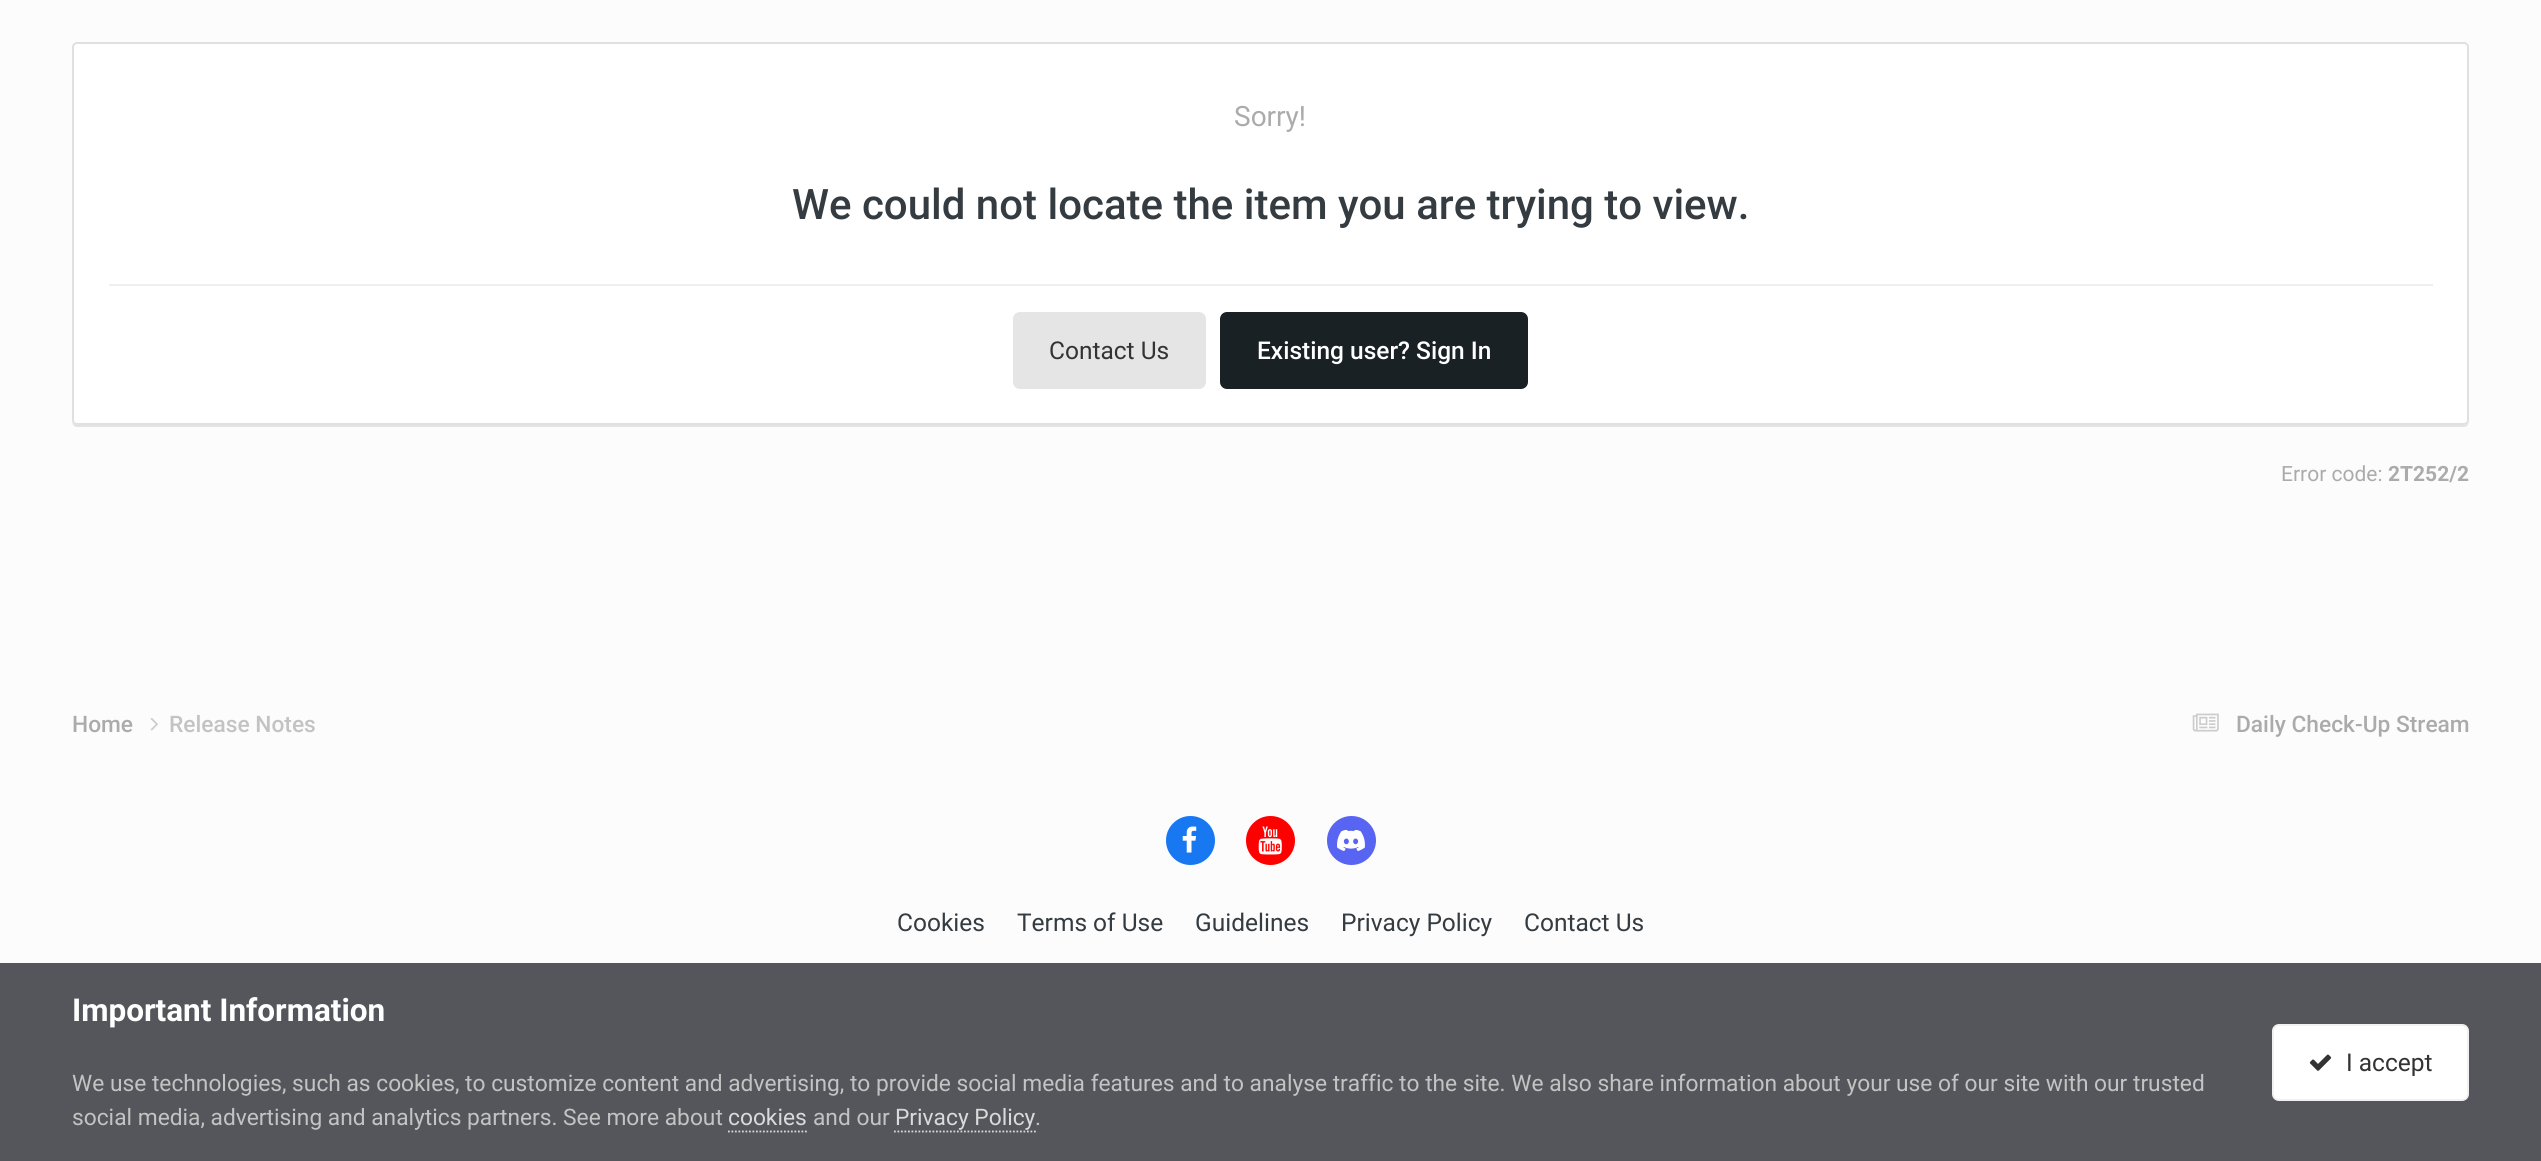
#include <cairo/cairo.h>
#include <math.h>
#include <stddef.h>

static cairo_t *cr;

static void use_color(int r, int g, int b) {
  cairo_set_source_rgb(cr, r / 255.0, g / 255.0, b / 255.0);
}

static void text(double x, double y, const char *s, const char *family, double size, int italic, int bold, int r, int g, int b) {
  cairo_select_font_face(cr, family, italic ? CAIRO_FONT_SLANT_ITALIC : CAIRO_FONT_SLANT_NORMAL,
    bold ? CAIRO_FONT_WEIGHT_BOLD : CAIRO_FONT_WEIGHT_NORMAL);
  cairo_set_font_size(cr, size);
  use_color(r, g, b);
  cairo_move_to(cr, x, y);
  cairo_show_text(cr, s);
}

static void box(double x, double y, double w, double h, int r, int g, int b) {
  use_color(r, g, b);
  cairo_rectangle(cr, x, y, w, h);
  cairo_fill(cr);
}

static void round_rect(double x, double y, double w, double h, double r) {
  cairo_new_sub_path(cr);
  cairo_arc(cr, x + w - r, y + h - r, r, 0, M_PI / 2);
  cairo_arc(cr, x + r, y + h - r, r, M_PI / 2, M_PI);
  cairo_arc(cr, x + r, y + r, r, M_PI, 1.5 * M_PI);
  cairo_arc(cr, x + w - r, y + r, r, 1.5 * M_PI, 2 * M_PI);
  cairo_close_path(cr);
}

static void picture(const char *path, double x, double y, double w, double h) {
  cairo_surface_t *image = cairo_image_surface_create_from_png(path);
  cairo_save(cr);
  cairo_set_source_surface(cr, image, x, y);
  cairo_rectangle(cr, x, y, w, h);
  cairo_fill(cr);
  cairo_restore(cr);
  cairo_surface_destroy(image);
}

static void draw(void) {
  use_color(252, 252, 252);
  cairo_paint(cr);
  use_color(227, 227, 227);
  cairo_new_path(cr);
  cairo_move_to(cr, 72, 422);
  cairo_curve_to(cr, 72, 424, 74, 427, 77, 427);
  cairo_line_to(cr, 2464, 427);
  cairo_curve_to(cr, 2467, 427, 2469, 424, 2469, 422);
  cairo_curve_to(cr, 2468, 424, 2466, 425, 2464, 425);
  cairo_line_to(cr, 77, 425);
  cairo_curve_to(cr, 75, 425, 73, 424, 72, 422);
  cairo_close_path(cr);
  cairo_fill(cr);
  use_color(255, 255, 255);
  round_rect(73, 43, 2395, 381, 4);
  cairo_fill_preserve(cr);
  use_color(224, 224, 224);
  cairo_stroke(cr);
  box(109, 284, 2324, 2, 239, 239, 240);
  use_color(229, 229, 229);
  round_rect(1013, 312, 193, 77, 7);
  cairo_fill(cr);
  use_color(25, 33, 37);
  round_rect(1220, 312, 308, 77, 7);
  cairo_fill(cr);
  picture("img_01.png", 150, 718, 8, 13);
  picture("img_02.png", 2192, 713, 27, 19);
  use_color(23, 120, 242);
  cairo_arc(cr, 1190.5, 840.5, 24.5, 0, 2 * M_PI);
  cairo_fill(cr);
  picture("img_03.png", 1182, 826, 15, 27);
  use_color(255, 0, 0);
  cairo_arc(cr, 1270.5, 840.5, 24.5, 0, 2 * M_PI);
  cairo_fill(cr);
  picture("img_04.png", 1258, 826, 24, 29);
  use_color(88, 101, 242);
  cairo_arc(cr, 1351.5, 840.5, 24.5, 0, 2 * M_PI);
  cairo_fill(cr);
  picture("img_05.png", 1337, 830, 28, 21);
  box(0, 963, 2541, 198, 85, 86, 91);
  cairo_new_path(cr);
  cairo_move_to(cr, 728, 1131.5);
  cairo_line_to(cr, 807, 1131.5);
  use_color(218, 218, 218);
  cairo_set_line_width(cr, 1.8);
  cairo_set_dash(cr, (double[]){1.75, 1.75}, 2, 0);
  cairo_stroke(cr);
  cairo_new_path(cr);
  cairo_move_to(cr, 894, 1131.5);
  cairo_line_to(cr, 1036, 1131.5);
  cairo_stroke(cr);
  use_color(255, 255, 255);
  round_rect(2272, 1024, 197, 77, 7);
  cairo_fill(cr);
  round_rect(2273, 1025, 195, 75, 6);
  cairo_set_source_rgba(cr, 0.2, 0.2, 0.2, 0.07);
  cairo_set_line_width(cr, 2);
  cairo_set_dash(cr, NULL, 0, 0);
  cairo_stroke(cr);
  picture("img_06.png", 2309, 1054, 23, 17);
  text(1234, 126, "Sorry!", "Roboto", 28, 0, 0, 171, 171, 171);
  text(792, 219, "We could not locate the item you are trying to view.", "Roboto Medium", 42, 0, 0, 53, 60, 65);
  text(1049, 359, "Contact Us", "Roboto", 24.5, 0, 0, 51, 51, 51);
  text(1257, 359, "Existing user? Sign In", "Roboto Medium", 24.5, 0, 0, 255, 255, 255);
  text(2281, 481, "Error code:", "Roboto", 21, 0, 0, 171, 171, 171);
  text(2388, 481, "2T252/2", "Roboto", 21, 0, 1, 171, 171, 171);
  text(72, 732, "Home", "Roboto Medium", 22.75, 0, 0, 171, 171, 171);
  text(169, 732, "Release Notes", "Roboto Medium", 22.75, 0, 0, 195, 195, 195);
  text(2236, 732, "Daily Check-Up Stream", "Roboto Medium", 22.75, 0, 0, 171, 171, 171);
  text(897, 931, "Cookies", "Roboto", 24.5, 0, 0, 53, 60, 65);
  text(1017, 931, "Terms of Use", "Roboto", 24.5, 0, 0, 53, 60, 65);
  text(1195, 931, "Guidelines", "Roboto", 24.5, 0, 0, 53, 60, 65);
  text(1341, 931, "Privacy Policy", "Roboto", 24.5, 0, 0, 53, 60, 65);
  text(1524, 931, "Contact Us", "Roboto", 24.5, 0, 0, 53, 60, 65);
  text(72, 1021, "Important Information", "Roboto", 31.5, 0, 1, 255, 255, 255);
  text(72, 1091, "We use technologies, such as cookies, to customize content and advertising, to provide social media features and to analyse traffic to the site. We also share information about your use of our site with our trusted", "Roboto", 22.75, 0, 0, 195, 195, 195);
  text(72, 1125, "social media, advertising and analytics partners. See more about", "Roboto", 22.75, 0, 0, 195, 195, 195);
  text(728, 1125, "cookies", "Roboto", 22.75, 0, 0, 218, 218, 218);
  text(813, 1125, "and our", "Roboto", 22.75, 0, 0, 195, 195, 195);
  text(895, 1125, "Privacy Policy", "Roboto", 22.75, 0, 0, 218, 218, 218);
  text(1035, 1125, ".", "Roboto", 22.75, 0, 0, 195, 195, 195);
  text(2346, 1071, "I accept", "Roboto", 24.5, 0, 0, 51, 51, 51);
}

int main(void) {
  cairo_surface_t *surface = cairo_image_surface_create(CAIRO_FORMAT_RGB24, 2541, 1161);
  cr = cairo_create(surface);
  cairo_font_options_t *options = cairo_font_options_create();
  cairo_font_options_set_hint_metrics(options, CAIRO_HINT_METRICS_OFF);
  cairo_font_options_set_hint_style(options, CAIRO_HINT_STYLE_NONE);
  cairo_set_font_options(cr, options);
  cairo_set_miter_limit(cr, 4);
  draw();
  cairo_surface_write_to_png(surface, "out.png");
  cairo_font_options_destroy(options);
  cairo_destroy(cr);
  cairo_surface_destroy(surface);
  return 0;
}
